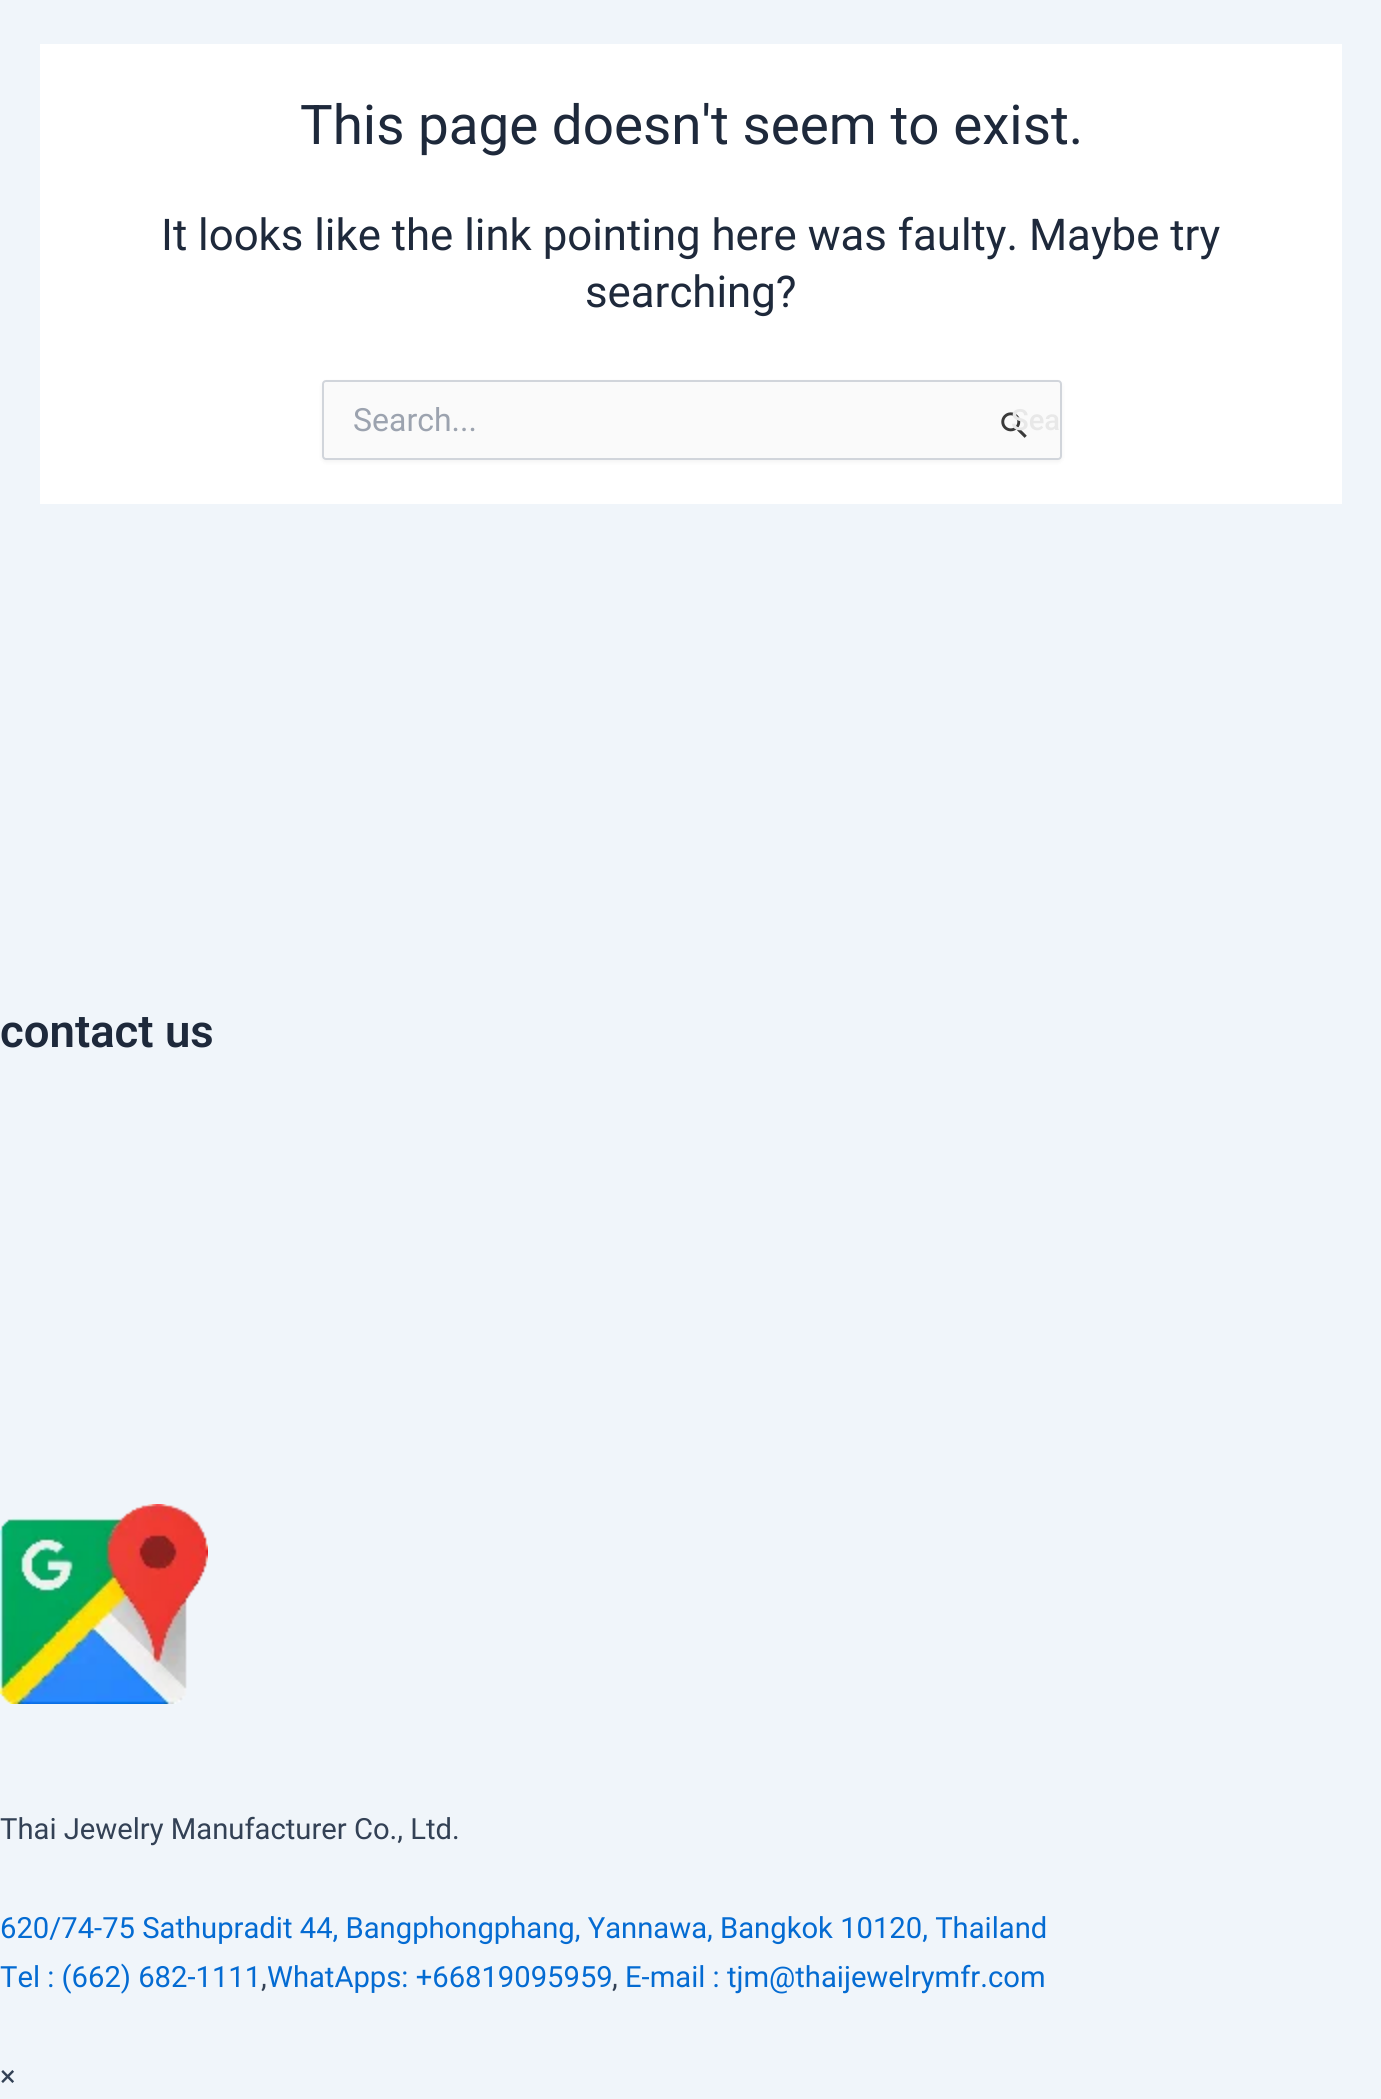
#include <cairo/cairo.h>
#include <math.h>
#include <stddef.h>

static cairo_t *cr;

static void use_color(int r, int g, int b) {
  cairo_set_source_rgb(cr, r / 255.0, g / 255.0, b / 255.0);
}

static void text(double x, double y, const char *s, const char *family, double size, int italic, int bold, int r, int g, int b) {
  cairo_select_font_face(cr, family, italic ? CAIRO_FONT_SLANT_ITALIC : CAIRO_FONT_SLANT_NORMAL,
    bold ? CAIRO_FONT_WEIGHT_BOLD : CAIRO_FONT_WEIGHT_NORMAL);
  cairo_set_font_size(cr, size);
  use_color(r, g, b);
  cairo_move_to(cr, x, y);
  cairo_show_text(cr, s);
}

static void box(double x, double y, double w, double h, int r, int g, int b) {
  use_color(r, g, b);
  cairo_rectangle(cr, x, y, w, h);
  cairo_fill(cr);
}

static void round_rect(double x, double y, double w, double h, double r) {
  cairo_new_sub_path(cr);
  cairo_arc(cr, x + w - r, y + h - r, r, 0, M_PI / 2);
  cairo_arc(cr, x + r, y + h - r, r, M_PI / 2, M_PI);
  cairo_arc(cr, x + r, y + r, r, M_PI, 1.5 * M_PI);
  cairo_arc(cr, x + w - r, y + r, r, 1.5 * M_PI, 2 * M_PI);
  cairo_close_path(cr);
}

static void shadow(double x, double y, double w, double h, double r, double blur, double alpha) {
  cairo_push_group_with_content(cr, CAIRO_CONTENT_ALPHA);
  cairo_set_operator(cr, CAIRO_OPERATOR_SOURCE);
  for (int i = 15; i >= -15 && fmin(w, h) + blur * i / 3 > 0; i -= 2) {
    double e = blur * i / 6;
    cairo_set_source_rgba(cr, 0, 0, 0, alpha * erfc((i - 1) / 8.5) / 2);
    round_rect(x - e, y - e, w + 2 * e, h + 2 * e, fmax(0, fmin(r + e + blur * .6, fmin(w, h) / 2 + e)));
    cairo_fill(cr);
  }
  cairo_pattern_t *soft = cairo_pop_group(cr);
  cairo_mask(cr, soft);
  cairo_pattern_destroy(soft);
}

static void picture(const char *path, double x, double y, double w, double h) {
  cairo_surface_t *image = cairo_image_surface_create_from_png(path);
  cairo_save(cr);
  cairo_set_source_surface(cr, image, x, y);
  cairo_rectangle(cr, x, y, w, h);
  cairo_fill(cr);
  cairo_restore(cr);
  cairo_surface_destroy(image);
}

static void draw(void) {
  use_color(240, 245, 250);
  cairo_paint(cr);
  box(40, 44, 1302, 460, 255, 255, 255);
  use_color(0, 0, 0);
  shadow(322, 382, 740, 80, 4, 2, 0.05);
  use_color(250, 250, 250);
  round_rect(323, 381, 738, 78, 3);
  cairo_fill_preserve(cr);
  use_color(209, 213, 219);
  cairo_stroke(cr);
  picture("img_01.png", 1001, 412, 26, 26);
  picture("img_02.png", 0, 1504, 208, 200);
  text(300, 144, "This page doesn't seem to exist.", "Roboto", 54.75, 0, 0, 30, 41, 59);
  text(161, 250, "It looks like the link pointing here was faulty. Maybe try", "Roboto", 43.75, 0, 0, 30, 41, 59);
  text(585, 307, "searching?", "Roboto", 43.75, 0, 0, 30, 41, 59);
  text(353, 431, "Search...", "Roboto", 32, 0, 0, 156, 163, 175);
  text(1011, 430, "Sea", "Roboto Medium", 29.2, 0, 0, 232, 232, 232);
  text(0, 1047, "contact us", "Roboto SemiBold", 45.5, 0, 0, 30, 41, 59);
  text(0, 1839, "Thai Jewelry Manufacturer Co., Ltd.", "Roboto", 29.2, 0, 0, 51, 65, 85);
  text(0, 1938, "620/74-75 Sathupradit 44, Bangphongphang, Yannawa, Bangkok 10120, Thailand", "Roboto", 29.2, 0, 0, 4, 107, 210);
  text(0, 1987, "Tel : (662) 682-1111", "Roboto", 29.2, 0, 0, 4, 107, 210);
  text(261, 1987, ",", "Roboto", 29.2, 0, 0, 51, 65, 85);
  text(267, 1987, "WhatApps: +66819095959", "Roboto", 29.2, 0, 0, 4, 107, 210);
  text(612, 1987, ",", "Roboto", 29.2, 0, 0, 51, 65, 85);
  text(625, 1987, "E-mail : tjm@thaijewelrymfr.com", "Roboto", 29.2, 0, 0, 4, 107, 210);
  text(0, 2086, "×", "Roboto", 29.2, 0, 0, 51, 65, 85);
}

int main(void) {
  cairo_surface_t *surface = cairo_image_surface_create(CAIRO_FORMAT_RGB24, 1381, 2099);
  cr = cairo_create(surface);
  cairo_font_options_t *options = cairo_font_options_create();
  cairo_font_options_set_hint_metrics(options, CAIRO_HINT_METRICS_OFF);
  cairo_font_options_set_hint_style(options, CAIRO_HINT_STYLE_NONE);
  cairo_set_font_options(cr, options);
  cairo_set_miter_limit(cr, 4);
  draw();
  cairo_surface_write_to_png(surface, "out.png");
  cairo_font_options_destroy(options);
  cairo_destroy(cr);
  cairo_surface_destroy(surface);
  return 0;
}
